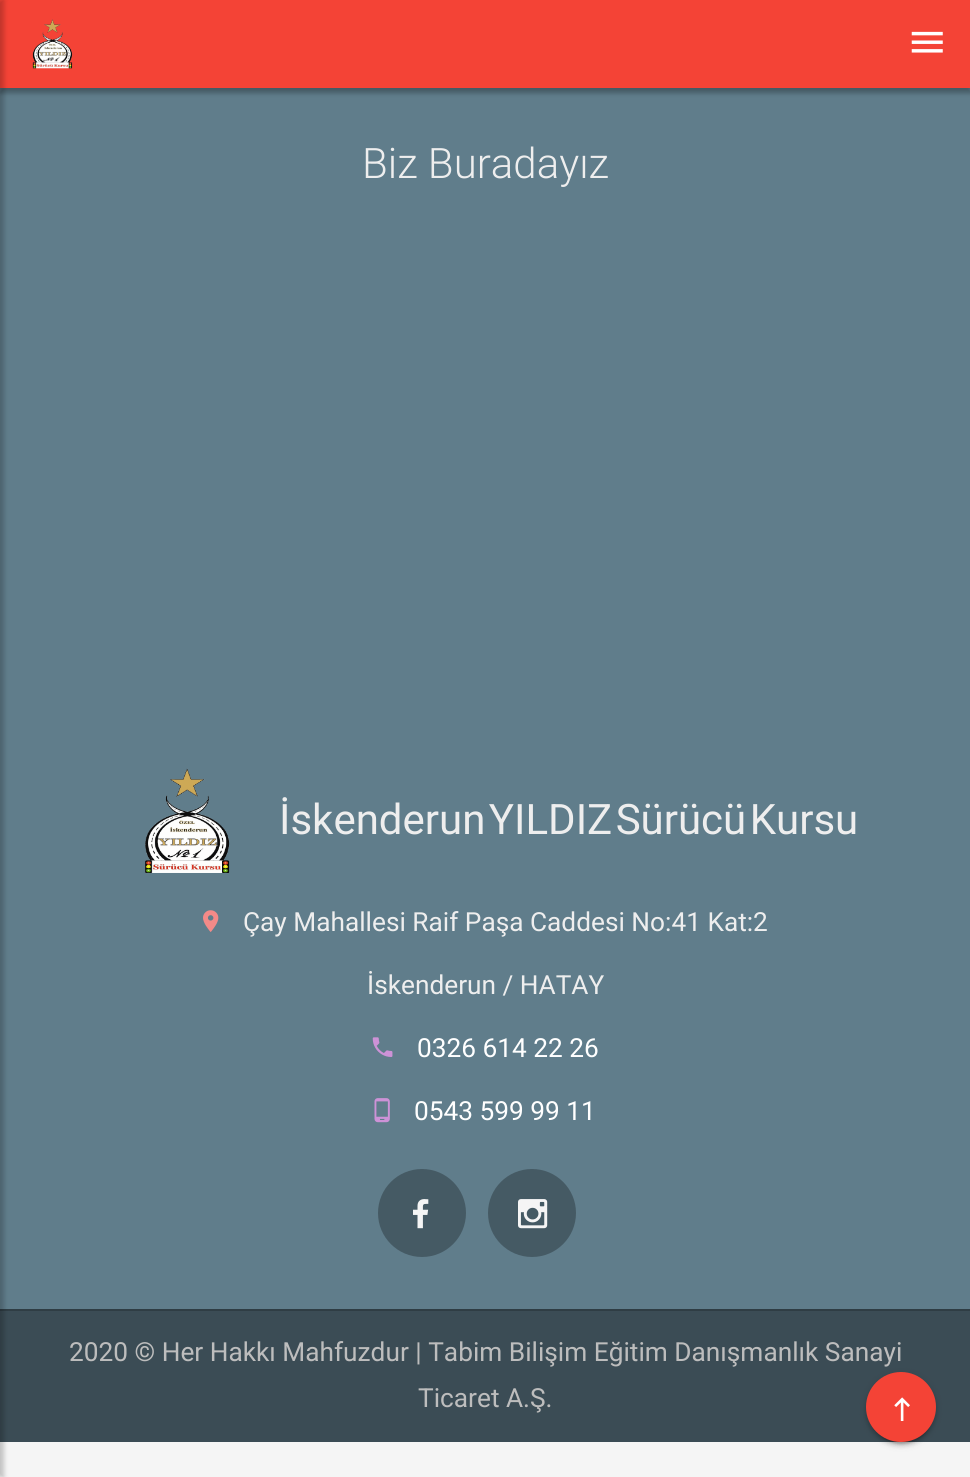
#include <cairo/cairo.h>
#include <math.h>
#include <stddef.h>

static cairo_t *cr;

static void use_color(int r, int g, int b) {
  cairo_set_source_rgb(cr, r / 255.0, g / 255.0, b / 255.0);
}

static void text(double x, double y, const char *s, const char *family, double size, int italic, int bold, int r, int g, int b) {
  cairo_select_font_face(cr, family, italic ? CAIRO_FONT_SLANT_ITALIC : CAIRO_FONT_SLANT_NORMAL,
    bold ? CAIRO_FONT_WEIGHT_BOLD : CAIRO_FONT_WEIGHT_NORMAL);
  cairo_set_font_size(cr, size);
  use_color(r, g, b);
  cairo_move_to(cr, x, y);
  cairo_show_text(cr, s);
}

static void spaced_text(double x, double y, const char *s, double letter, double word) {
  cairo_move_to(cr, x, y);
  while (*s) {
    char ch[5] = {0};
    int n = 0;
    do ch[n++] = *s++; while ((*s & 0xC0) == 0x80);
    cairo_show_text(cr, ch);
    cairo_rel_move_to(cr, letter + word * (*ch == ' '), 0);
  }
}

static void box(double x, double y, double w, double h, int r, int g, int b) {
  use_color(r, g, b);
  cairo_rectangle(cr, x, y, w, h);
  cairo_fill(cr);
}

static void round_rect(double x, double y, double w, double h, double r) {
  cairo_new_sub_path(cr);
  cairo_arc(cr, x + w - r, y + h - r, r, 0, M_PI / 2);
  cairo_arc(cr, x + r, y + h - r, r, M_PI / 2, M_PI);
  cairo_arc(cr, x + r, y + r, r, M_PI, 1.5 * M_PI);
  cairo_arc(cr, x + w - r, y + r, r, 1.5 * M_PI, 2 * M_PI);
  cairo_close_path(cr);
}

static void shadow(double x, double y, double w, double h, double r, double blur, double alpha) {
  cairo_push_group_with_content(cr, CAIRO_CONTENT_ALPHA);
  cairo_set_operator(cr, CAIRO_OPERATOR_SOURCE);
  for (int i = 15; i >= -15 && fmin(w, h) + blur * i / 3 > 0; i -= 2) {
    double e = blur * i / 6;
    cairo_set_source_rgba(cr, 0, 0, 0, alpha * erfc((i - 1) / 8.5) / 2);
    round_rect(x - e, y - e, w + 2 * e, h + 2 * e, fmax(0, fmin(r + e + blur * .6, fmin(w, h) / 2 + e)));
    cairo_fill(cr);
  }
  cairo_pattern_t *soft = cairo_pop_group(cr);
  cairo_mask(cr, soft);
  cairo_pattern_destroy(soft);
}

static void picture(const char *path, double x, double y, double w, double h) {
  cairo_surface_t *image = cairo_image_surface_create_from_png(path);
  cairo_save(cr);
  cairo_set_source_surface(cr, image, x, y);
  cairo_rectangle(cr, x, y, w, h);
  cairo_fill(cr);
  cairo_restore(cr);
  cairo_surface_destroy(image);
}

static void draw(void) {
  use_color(245, 245, 245);
  cairo_paint(cr);
  box(0, 88, 970, 1221, 96, 125, 139);
  use_color(0, 0, 0);
  shadow(0, 5, 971, 88, 0, 2.5, 0.29);
  box(0, 0, 970, 88, 244, 67, 54);
  box(0, 1311, 970, 131, 59, 76, 85);
  cairo_save(cr);
  cairo_rectangle(cr, 0, 1309, 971, 133);
  cairo_clip(cr);
  use_color(47, 61, 68);
  cairo_set_fill_rule(cr, CAIRO_FILL_RULE_EVEN_ODD);
  cairo_new_path(cr);
  cairo_move_to(cr, -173, 1136);
  cairo_line_to(cr, 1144, 1136);
  cairo_line_to(cr, 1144, 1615);
  cairo_line_to(cr, -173, 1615);
  cairo_close_path(cr);
  cairo_move_to(cr, 0, 1311);
  cairo_line_to(cr, 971, 1311);
  cairo_curve_to(cr, 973, 1311, 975, 1312, 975, 1314);
  cairo_line_to(cr, 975, 1447);
  cairo_curve_to(cr, 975, 1449, 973, 1451, 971, 1451);
  cairo_line_to(cr, 0, 1451);
  cairo_curve_to(cr, -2, 1451, -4, 1449, -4, 1447);
  cairo_line_to(cr, -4, 1314);
  cairo_curve_to(cr, -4, 1312, -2, 1311, 0, 1311);
  cairo_close_path(cr);
  cairo_fill(cr);
  cairo_restore(cr);
  use_color(0, 0, 0);
  shadow(-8, 0, 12, 1477, 0, 2.5, 0.21);
  picture("img_01.png", 32, 19, 41, 50);
  picture("img_02.png", 911, 31, 32, 22);
  picture("img_03.png", 145, 768, 85, 105);
  picture("img_04.png", 203, 910, 16, 22);
  picture("img_05.png", 372, 1037, 21, 20);
  picture("img_06.png", 374, 1098, 16, 25);
  use_color(69, 90, 100);
  cairo_arc(cr, 422, 1213, 44, 0, 2 * M_PI);
  cairo_fill(cr);
  picture("img_07.png", 413, 1199, 16, 30);
  cairo_arc(cr, 532, 1213, 44, 0, 2 * M_PI);
  cairo_fill(cr);
  picture("img_08.png", 518, 1199, 30, 30);
  use_color(0, 0, 0);
  shadow(866, 1374, 70, 70, 35, 4.5, 0.12);
  shadow(870, 1381, 63, 63, 31.5, 1, 0.2);
  shadow(866, 1376, 70, 70, 35, 2, 0.14);
  use_color(244, 67, 54);
  cairo_arc(cr, 901, 1407, 35, 0, 2 * M_PI);
  cairo_fill(cr);
  picture("img_09.png", 894, 1397, 16, 24);
  text(362, 178, "Biz Buradayız", "Roboto Light", 42, 0, 0, 238, 238, 238);
  cairo_select_font_face(cr, "Roboto", CAIRO_FONT_SLANT_NORMAL, CAIRO_FONT_WEIGHT_NORMAL);
  spaced_text(279, 834, "İskenderun YILDIZ Sürücü Kursu", 0, -7);
  text(243, 931, "Çay Mahallesi Raif Paşa Caddesi No:41 Kat:2", "Roboto", 26.25, 0, 0, 238, 238, 238);
  text(367, 994, "İskenderun / HATAY", "Roboto", 26.25, 0, 0, 238, 238, 238);
  text(417, 1057, "0326 614 22 26", "Roboto", 26.25, 0, 0, 255, 255, 255);
  text(414, 1120, "0543 599 99 11", "Roboto", 26.25, 0, 0, 255, 255, 255);
  text(69, 1361, "2020 © Her Hakkı Mahfuzdur | Tabim Bilişim Eğitim Danışmanlık Sanayi", "Roboto", 26.25, 0, 0, 189, 189, 189);
  text(418, 1407, "Ticaret A.Ş.", "Roboto", 26.25, 0, 0, 189, 189, 189);
}

int main(void) {
  cairo_surface_t *surface = cairo_image_surface_create(CAIRO_FORMAT_RGB24, 970, 1477);
  cr = cairo_create(surface);
  cairo_font_options_t *options = cairo_font_options_create();
  cairo_font_options_set_hint_metrics(options, CAIRO_HINT_METRICS_OFF);
  cairo_font_options_set_hint_style(options, CAIRO_HINT_STYLE_NONE);
  cairo_set_font_options(cr, options);
  cairo_set_miter_limit(cr, 4);
  draw();
  cairo_surface_write_to_png(surface, "out.png");
  cairo_font_options_destroy(options);
  cairo_destroy(cr);
  cairo_surface_destroy(surface);
  return 0;
}
